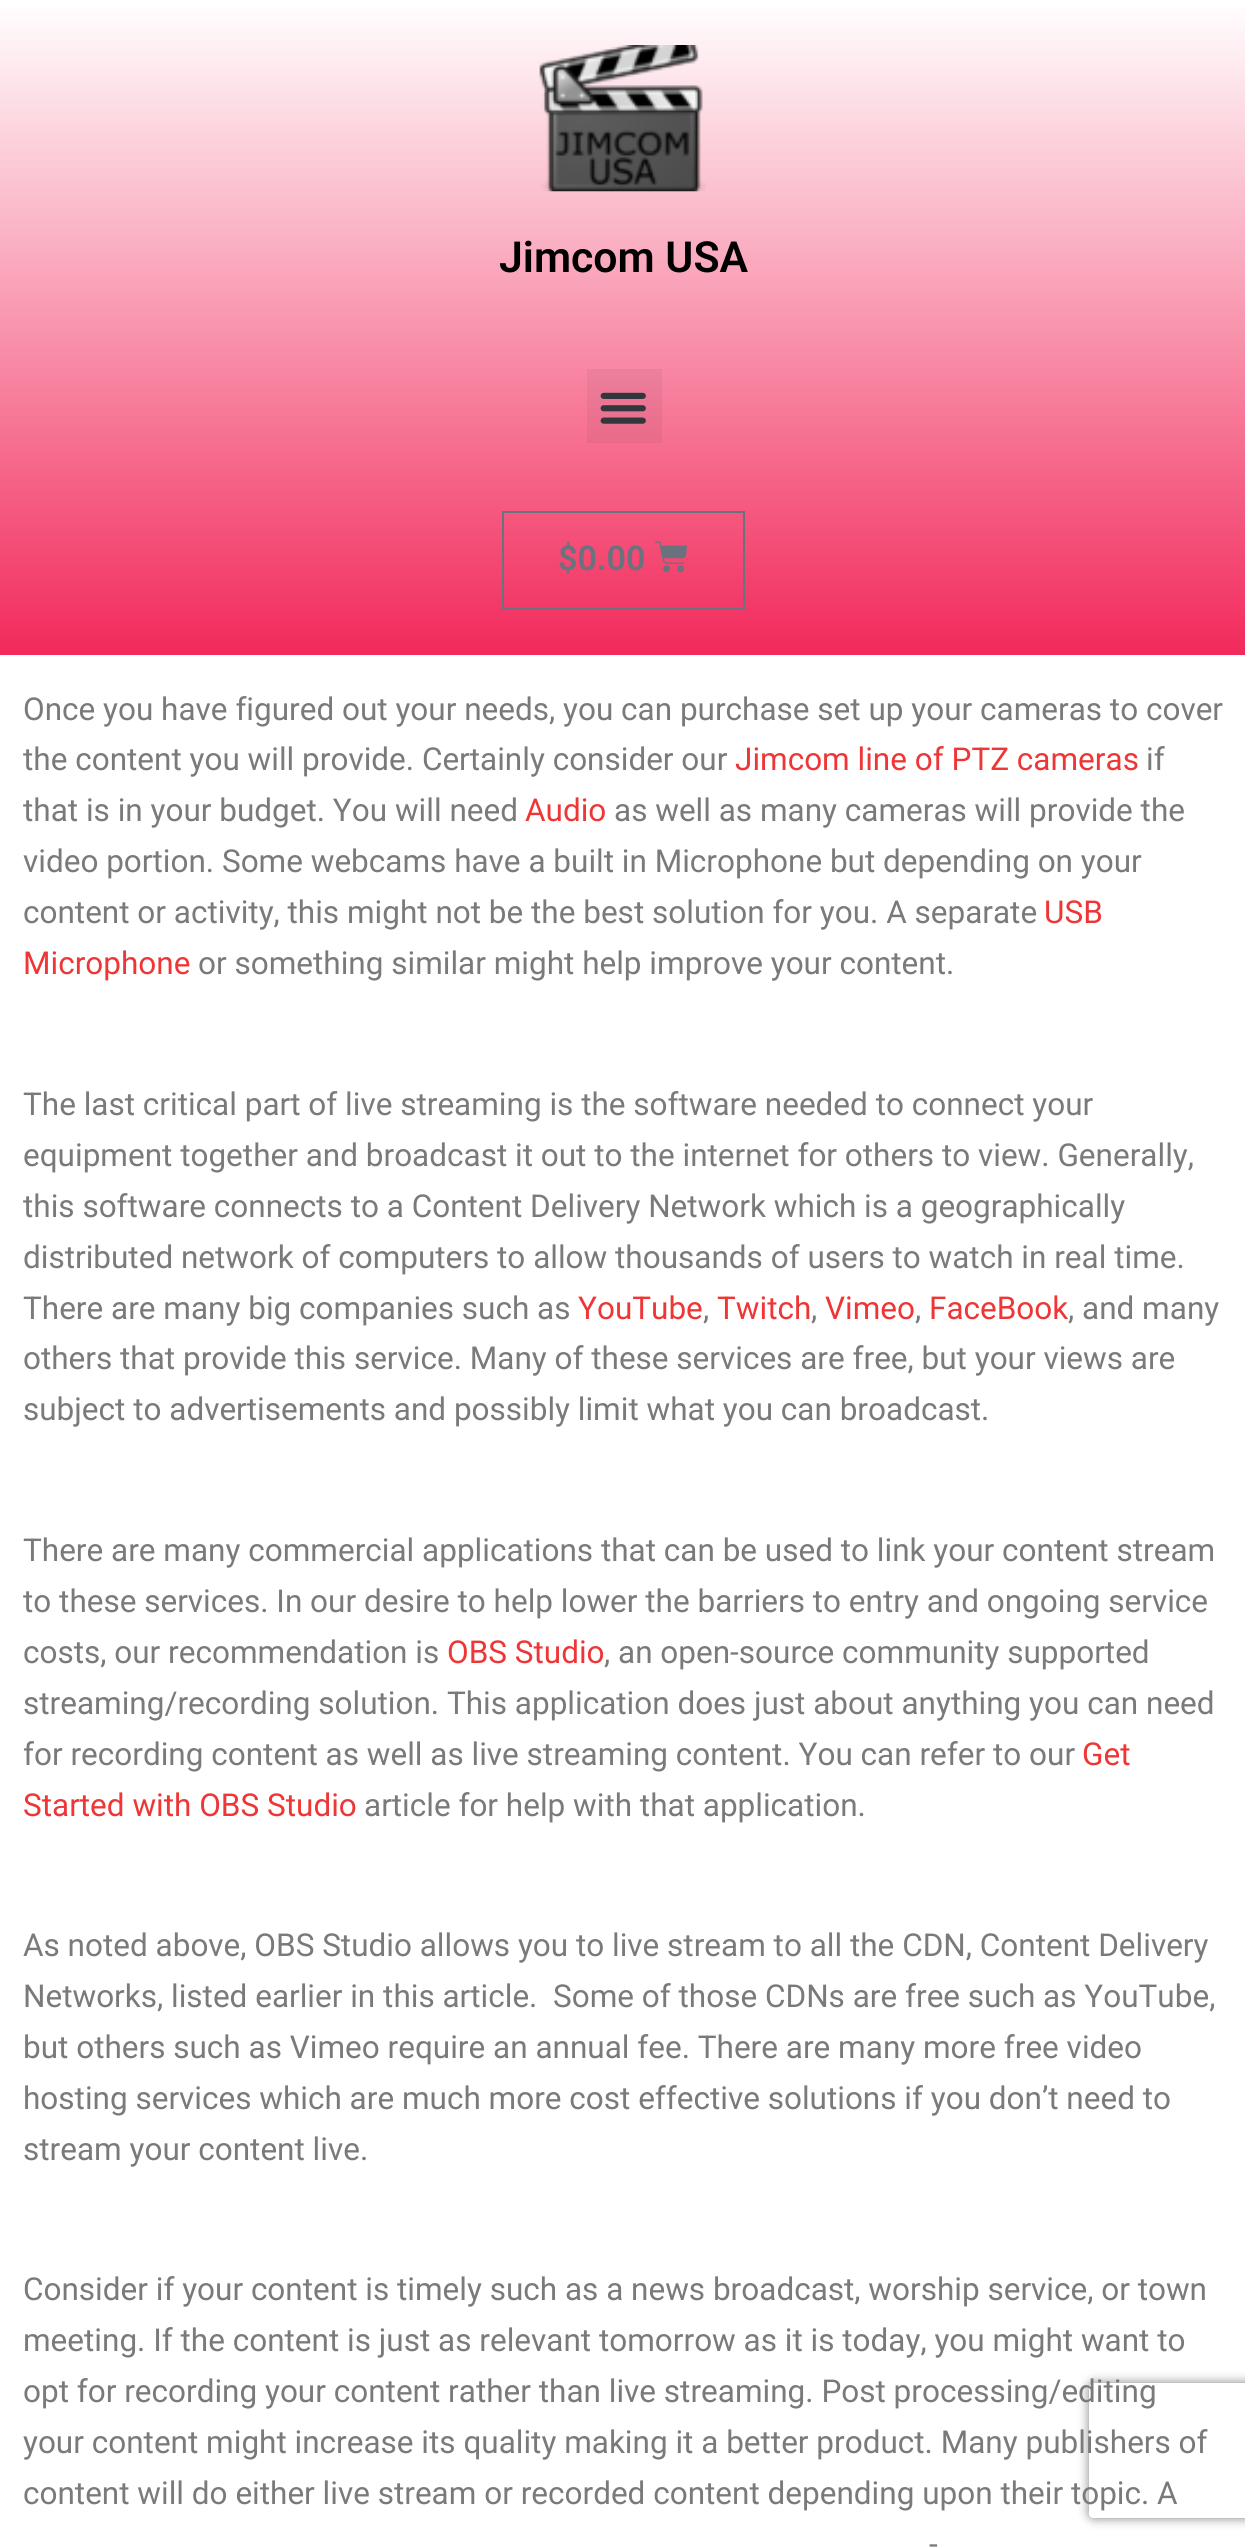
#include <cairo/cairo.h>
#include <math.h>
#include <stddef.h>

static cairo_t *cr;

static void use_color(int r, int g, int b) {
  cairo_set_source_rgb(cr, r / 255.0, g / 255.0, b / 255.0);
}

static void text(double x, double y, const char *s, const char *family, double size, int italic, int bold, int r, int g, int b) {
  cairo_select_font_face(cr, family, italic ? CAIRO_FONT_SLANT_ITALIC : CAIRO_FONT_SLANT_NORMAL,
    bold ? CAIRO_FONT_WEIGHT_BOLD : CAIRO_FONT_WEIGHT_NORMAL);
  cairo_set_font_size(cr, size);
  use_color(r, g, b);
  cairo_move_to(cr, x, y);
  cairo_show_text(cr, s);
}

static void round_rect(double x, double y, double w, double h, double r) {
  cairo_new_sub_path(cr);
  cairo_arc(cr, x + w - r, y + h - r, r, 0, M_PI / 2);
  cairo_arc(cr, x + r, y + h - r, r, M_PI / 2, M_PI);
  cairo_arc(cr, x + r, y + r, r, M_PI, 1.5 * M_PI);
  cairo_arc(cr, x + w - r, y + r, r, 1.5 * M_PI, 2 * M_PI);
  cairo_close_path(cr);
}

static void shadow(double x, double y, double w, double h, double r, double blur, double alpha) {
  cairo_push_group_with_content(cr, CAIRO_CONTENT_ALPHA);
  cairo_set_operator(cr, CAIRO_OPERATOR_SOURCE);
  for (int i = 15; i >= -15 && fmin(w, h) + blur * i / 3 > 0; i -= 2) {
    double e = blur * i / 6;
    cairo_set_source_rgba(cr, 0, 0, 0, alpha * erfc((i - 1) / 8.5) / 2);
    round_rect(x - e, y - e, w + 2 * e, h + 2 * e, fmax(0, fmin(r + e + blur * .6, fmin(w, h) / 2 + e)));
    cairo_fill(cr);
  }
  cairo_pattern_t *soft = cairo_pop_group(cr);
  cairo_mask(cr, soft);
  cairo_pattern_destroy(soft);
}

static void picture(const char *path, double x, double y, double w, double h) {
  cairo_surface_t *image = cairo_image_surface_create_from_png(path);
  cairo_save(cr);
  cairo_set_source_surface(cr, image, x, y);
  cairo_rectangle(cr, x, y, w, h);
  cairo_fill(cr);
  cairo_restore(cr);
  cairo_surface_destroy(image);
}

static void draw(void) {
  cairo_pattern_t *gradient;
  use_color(255, 255, 255);
  cairo_paint(cr);
  gradient = cairo_pattern_create_linear(623, 0, 623, 655);
  cairo_pattern_add_color_stop_rgba(gradient, 0, 1, 1, 1, 1);
  cairo_pattern_add_color_stop_rgba(gradient, 1, 0.949, 0.161, 0.357, 1);
  cairo_set_source(cr, gradient);
  cairo_pattern_destroy(gradient);
  cairo_rectangle(cr, 0, 8, 1245, 647);
  cairo_fill(cr);
  picture("img_01.png", 539, 45, 167, 147);
  cairo_set_source_rgba(cr, 0, 0, 0, 0.05);
  cairo_rectangle(cr, 587, 369, 75, 74);
  cairo_fill(cr);
  picture("img_02.png", 600, 392, 46, 32);
  cairo_rectangle(cr, 503, 512, 241, 97);
  use_color(105, 114, 125);
  cairo_stroke(cr);
  picture("img_03.png", 655, 541, 33, 32);
  cairo_save(cr);
  cairo_set_fill_rule(cr, CAIRO_FILL_RULE_EVEN_ODD);
  cairo_new_path(cr);
  cairo_move_to(cr, 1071, 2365);
  cairo_line_to(cr, 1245, 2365);
  cairo_line_to(cr, 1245, 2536);
  cairo_line_to(cr, 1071, 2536);
  cairo_close_path(cr);
  cairo_move_to(cr, 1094, 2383);
  cairo_line_to(cr, 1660, 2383);
  cairo_curve_to(cr, 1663, 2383, 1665, 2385, 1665, 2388);
  cairo_line_to(cr, 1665, 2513);
  cairo_curve_to(cr, 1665, 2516, 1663, 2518, 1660, 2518);
  cairo_line_to(cr, 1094, 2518);
  cairo_curve_to(cr, 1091, 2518, 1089, 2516, 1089, 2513);
  cairo_line_to(cr, 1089, 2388);
  cairo_curve_to(cr, 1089, 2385, 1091, 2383, 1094, 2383);
  cairo_close_path(cr);
  cairo_clip(cr);
  use_color(128, 128, 128);
  shadow(1089, 2383, 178, 135, 5, 5.5, 1);
  cairo_restore(cr);
  text(499, 272, "Jimcom USA", "Roboto SemiBold", 42.75, 0, 0, 0, 0, 0);
  text(558, 570, "$0.00", "Roboto SemiBold", 34, 0, 0, 105, 114, 125);
  text(23, 720, "Once you have figured out your needs, you can purchase set up your cameras to cover", "Roboto", 31.5, 0, 0, 122, 122, 122);
  text(23, 770, "the content you will provide. Certainly consider our", "Roboto", 31.5, 0, 0, 122, 122, 122);
  text(735, 770, "Jimcom line of PTZ cameras", "Roboto", 31.5, 0, 0, 239, 54, 54);
  text(1146, 770, "if", "Roboto", 31.5, 0, 0, 122, 122, 122);
  text(23, 821, "that is in your budget. You will need", "Roboto", 31.5, 0, 0, 122, 122, 122);
  text(525, 821, "Audio", "Roboto", 31.5, 0, 0, 239, 54, 54);
  text(614, 821, "as well as many cameras will provide the", "Roboto", 31.5, 0, 0, 122, 122, 122);
  text(23, 872, "video portion. Some webcams have a built in Microphone but depending on your", "Roboto", 31.5, 0, 0, 122, 122, 122);
  text(23, 923, "content or activity, this might not be the best solution for you. A separate", "Roboto", 31.5, 0, 0, 122, 122, 122);
  text(1044, 923, "USB", "Roboto", 31.5, 0, 0, 239, 54, 54);
  text(23, 974, "Microphone", "Roboto", 31.5, 0, 0, 239, 54, 54);
  text(198, 974, "or something similar might help improve your content.", "Roboto", 31.5, 0, 0, 122, 122, 122);
  text(23, 1115, "The last critical part of live streaming is the software needed to connect your", "Roboto", 31.5, 0, 0, 122, 122, 122);
  text(23, 1166, "equipment together and broadcast it out to the internet for others to view. Generally,", "Roboto", 31.5, 0, 0, 122, 122, 122);
  text(23, 1217, "this software connects to a Content Delivery Network which is a geographically", "Roboto", 31.5, 0, 0, 122, 122, 122);
  text(23, 1268, "distributed network of computers to allow thousands of users to watch in real time.", "Roboto", 31.5, 0, 0, 122, 122, 122);
  text(23, 1319, "There are many big companies such as", "Roboto", 31.5, 0, 0, 122, 122, 122);
  text(578, 1319, "YouTube", "Roboto", 31.5, 0, 0, 239, 54, 54);
  text(703, 1319, ",", "Roboto", 31.5, 0, 0, 122, 122, 122);
  text(717, 1319, "Twitch", "Roboto", 31.5, 0, 0, 239, 54, 54);
  text(811, 1319, ",", "Roboto", 31.5, 0, 0, 122, 122, 122);
  text(825, 1319, "Vimeo", "Roboto", 31.5, 0, 0, 239, 54, 54);
  text(915, 1319, ",", "Roboto", 31.5, 0, 0, 122, 122, 122);
  text(929, 1319, "FaceBook", "Roboto", 31.5, 0, 0, 239, 54, 54);
  text(1068, 1319, ", and many", "Roboto", 31.5, 0, 0, 122, 122, 122);
  text(23, 1369, "others that provide this service. Many of these services are free, but your views are", "Roboto", 31.5, 0, 0, 122, 122, 122);
  text(23, 1420, "subject to advertisements and possibly limit what you can broadcast.", "Roboto", 31.5, 0, 0, 122, 122, 122);
  text(23, 1561, "There are many commercial applications that can be used to link your content stream", "Roboto", 31.5, 0, 0, 122, 122, 122);
  text(23, 1612, "to these services. In our desire to help lower the barriers to entry and ongoing service", "Roboto", 31.5, 0, 0, 122, 122, 122);
  text(23, 1663, "costs, our recommendation is", "Roboto", 31.5, 0, 0, 122, 122, 122);
  text(447, 1663, "OBS Studio", "Roboto", 31.5, 0, 0, 239, 54, 54);
  text(604, 1663, ", an open-source community supported", "Roboto", 31.5, 0, 0, 122, 122, 122);
  text(23, 1714, "streaming/recording solution. This application does just about anything you can need", "Roboto", 31.5, 0, 0, 122, 122, 122);
  text(23, 1765, "for recording content as well as live streaming content. You can refer to our", "Roboto", 31.5, 0, 0, 122, 122, 122);
  text(1082, 1765, "Get", "Roboto", 31.5, 0, 0, 239, 54, 54);
  text(23, 1816, "Started with OBS Studio", "Roboto", 31.5, 0, 0, 239, 54, 54);
  text(364, 1816, "article for help with that application.", "Roboto", 31.5, 0, 0, 122, 122, 122);
  text(23, 1956, "As noted above, OBS Studio allows you to live stream to all the CDN, Content Delivery", "Roboto", 31.5, 0, 0, 122, 122, 122);
  text(23, 2007, "Networks, listed earlier in this article.  Some of those CDNs are free such as YouTube,", "Roboto", 31.5, 0, 0, 122, 122, 122);
  text(23, 2058, "but others such as Vimeo require an annual fee. There are many more free video", "Roboto", 31.5, 0, 0, 122, 122, 122);
  text(23, 2109, "hosting services which are much more cost effective solutions if you don’t need to", "Roboto", 31.5, 0, 0, 122, 122, 122);
  text(23, 2160, "stream your content live.", "Roboto", 31.5, 0, 0, 122, 122, 122);
  text(23, 2300, "Consider if your content is timely such as a news broadcast, worship service, or town", "Roboto", 31.5, 0, 0, 122, 122, 122);
  text(23, 2351, "meeting. If the content is just as relevant tomorrow as it is today, you might want to", "Roboto", 31.5, 0, 0, 122, 122, 122);
  text(23, 2402, "opt for recording your content rather than live streaming. Post processing/editing", "Roboto", 31.5, 0, 0, 122, 122, 122);
  text(23, 2453, "your content might increase its quality making it a better product. Many publishers of", "Roboto", 31.5, 0, 0, 122, 122, 122);
  text(23, 2504, "content will do either live stream or recorded content depending upon their topic. A", "Roboto", 31.5, 0, 0, 122, 122, 122);
  text(929, 2555, "-", "Roboto", 31.5, 0, 0, 122, 122, 122);
}

int main(void) {
  cairo_surface_t *surface = cairo_image_surface_create(CAIRO_FORMAT_RGB24, 1245, 2548);
  cr = cairo_create(surface);
  cairo_font_options_t *options = cairo_font_options_create();
  cairo_font_options_set_hint_metrics(options, CAIRO_HINT_METRICS_OFF);
  cairo_font_options_set_hint_style(options, CAIRO_HINT_STYLE_NONE);
  cairo_set_font_options(cr, options);
  cairo_set_miter_limit(cr, 4);
  draw();
  cairo_surface_write_to_png(surface, "out.png");
  cairo_font_options_destroy(options);
  cairo_destroy(cr);
  cairo_surface_destroy(surface);
  return 0;
}
